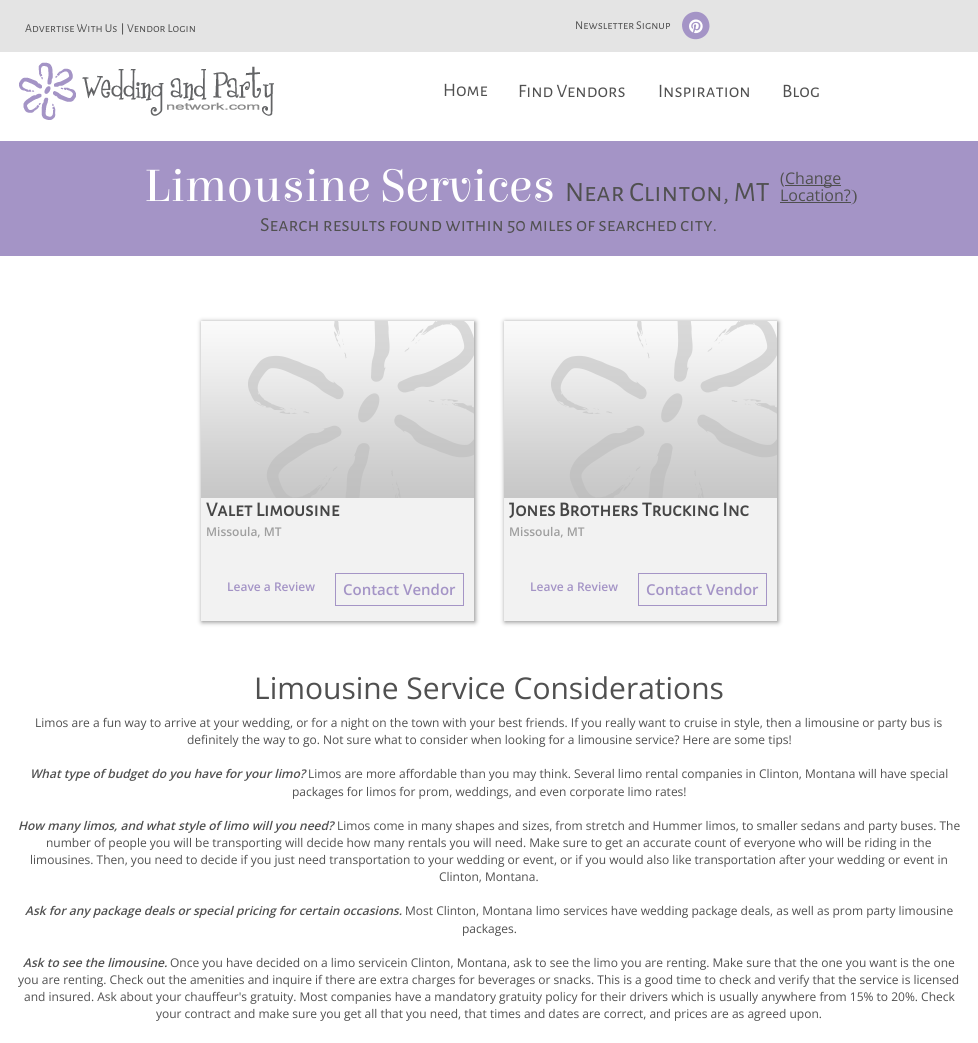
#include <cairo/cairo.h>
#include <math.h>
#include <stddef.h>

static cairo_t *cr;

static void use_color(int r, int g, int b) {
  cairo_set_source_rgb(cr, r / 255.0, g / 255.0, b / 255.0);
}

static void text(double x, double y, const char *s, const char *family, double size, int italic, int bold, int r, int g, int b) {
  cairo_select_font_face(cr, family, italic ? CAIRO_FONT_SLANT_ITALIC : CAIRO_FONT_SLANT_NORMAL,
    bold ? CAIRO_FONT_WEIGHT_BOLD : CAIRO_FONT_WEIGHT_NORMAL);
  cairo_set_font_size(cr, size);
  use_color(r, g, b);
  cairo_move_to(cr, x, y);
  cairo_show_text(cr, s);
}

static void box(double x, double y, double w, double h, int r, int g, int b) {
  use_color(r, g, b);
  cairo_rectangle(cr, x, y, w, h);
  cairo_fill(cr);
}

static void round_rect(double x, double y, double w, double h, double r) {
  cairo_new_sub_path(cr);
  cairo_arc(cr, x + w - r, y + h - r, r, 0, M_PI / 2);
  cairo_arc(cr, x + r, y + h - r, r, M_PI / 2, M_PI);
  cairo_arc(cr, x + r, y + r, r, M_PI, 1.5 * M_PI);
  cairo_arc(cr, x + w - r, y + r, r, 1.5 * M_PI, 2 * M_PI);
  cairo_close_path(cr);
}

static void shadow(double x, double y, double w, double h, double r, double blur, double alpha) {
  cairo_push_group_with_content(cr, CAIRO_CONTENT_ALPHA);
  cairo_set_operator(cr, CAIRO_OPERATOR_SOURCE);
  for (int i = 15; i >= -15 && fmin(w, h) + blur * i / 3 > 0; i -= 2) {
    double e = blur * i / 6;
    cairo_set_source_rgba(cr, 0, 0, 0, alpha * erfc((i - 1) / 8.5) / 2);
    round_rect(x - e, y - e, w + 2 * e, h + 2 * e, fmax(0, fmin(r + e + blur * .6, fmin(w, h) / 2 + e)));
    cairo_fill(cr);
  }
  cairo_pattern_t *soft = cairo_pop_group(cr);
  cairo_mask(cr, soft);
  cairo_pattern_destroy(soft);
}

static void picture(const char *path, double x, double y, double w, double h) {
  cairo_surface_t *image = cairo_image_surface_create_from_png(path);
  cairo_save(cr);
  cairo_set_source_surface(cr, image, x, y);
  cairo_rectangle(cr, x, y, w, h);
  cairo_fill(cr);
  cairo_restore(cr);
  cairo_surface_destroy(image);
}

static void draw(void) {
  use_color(255, 255, 255);
  cairo_paint(cr);
  box(0, 0, 978, 52, 228, 228, 228);
  use_color(164, 148, 198);
  cairo_new_path(cr);
  cairo_move_to(cr, 707.5, 18.5);
  cairo_curve_to(cr, 709, 21, 709.5, 24, 709.5, 26.5);
  cairo_curve_to(cr, 708.5, 40, 690.5, 44, 684, 32.5);
  cairo_curve_to(cr, 682.5, 30, 682, 27.5, 682, 24.5);
  cairo_curve_to(cr, 683, 11, 701, 7, 707.5, 18.5);
  cairo_close_path(cr);
  cairo_fill(cr);
  picture("img_01.png", 689, 19, 14, 15);
  picture("img_02.png", 19, 62, 255, 58);
  box(0, 141, 978, 115, 164, 148, 198);
  box(785, 185, 56, 1, 79, 79, 79);
  box(780, 202, 71, 1, 79, 79, 79);
  use_color(136, 136, 136);
  shadow(202, 322, 273, 300, 0, 2.5, 1);
  box(201, 498, 273, 123, 242, 242, 242);
  picture("img_03.png", 201, 321, 273, 177);
  cairo_rectangle(cr, 335.5, 573.5, 128, 32);
  use_color(165, 149, 198);
  cairo_set_line_width(cr, 1);
  cairo_stroke(cr);
  use_color(136, 136, 136);
  shadow(505, 322, 273, 300, 0, 2.5, 1);
  box(504, 498, 273, 123, 242, 242, 242);
  picture("img_03.png", 504, 321, 273, 177);
  cairo_rectangle(cr, 638.5, 573.5, 128, 32);
  use_color(165, 149, 198);
  cairo_stroke(cr);
  text(25, 32, "Advertise With Us", "Alegreya Sans SC", 12, 0, 0, 80, 80, 80);
  text(121, 32, "|", "Liberation Sans", 12, 0, 0, 80, 80, 80);
  text(127, 32, "Vendor Login", "Alegreya Sans SC", 12, 0, 0, 80, 80, 80);
  text(575, 29, "Newsletter Signup", "Alegreya Sans SC", 12, 0, 0, 80, 80, 80);
  text(443, 96, "Home", "Alegreya Sans SC", 19, 0, 0, 80, 80, 80);
  text(518, 97, "Find Vendors", "Alegreya Sans SC", 19, 0, 0, 80, 80, 80);
  text(658, 97, "Inspiration", "Alegreya Sans SC", 19, 0, 0, 80, 80, 80);
  text(782, 97, "Blog", "Alegreya Sans SC", 19, 0, 0, 80, 80, 80);
  text(144, 201, "Limousine Services", "Elsie", 48, 0, 0, 255, 255, 255);
  text(565, 201, "Near Clinton, MT", "Alegreya Sans SC", 28, 0, 0, 80, 80, 80);
  text(780, 184, "(", "Open Sans", 16, 0, 0, 80, 80, 80);
  text(785, 184, "Change", "Open Sans", 16, 0, 0, 80, 80, 80);
  text(780, 201, "Location?", "Open Sans", 16, 0, 0, 80, 80, 80);
  text(851, 201, ")", "Elsie", 16, 0, 0, 80, 80, 80);
  text(260, 231, "Search results found within 50 miles of searched city.", "Alegreya Sans SC", 20, 0, 0, 80, 80, 80);
  text(206, 516, "Valet Limousine", "Alegreya Sans SC", 20, 0, 1, 70, 70, 70);
  text(206, 536, "Missoula, MT", "Open Sans SemiBold", 12, 0, 0, 159, 159, 159);
  text(227, 591, "Leave a Review", "Open Sans SemiBold", 12, 0, 0, 164, 148, 198);
  text(343, 595, "Contact Vendor", "Open Sans SemiBold", 15, 0, 0, 164, 148, 198);
  text(509, 516, "Jones Brothers Trucking Inc", "Alegreya Sans SC", 20, 0, 1, 70, 70, 70);
  text(509, 536, "Missoula, MT", "Open Sans SemiBold", 12, 0, 0, 159, 159, 159);
  text(530, 591, "Leave a Review", "Open Sans SemiBold", 12, 0, 0, 164, 148, 198);
  text(646, 595, "Contact Vendor", "Open Sans SemiBold", 15, 0, 0, 164, 148, 198);
  text(254, 699, "Limousine Service Considerations", "Open Sans", 30, 0, 0, 80, 80, 80);
  text(35, 727, "Limos are a fun way to arrive at your wedding, or for a night on the town with your best friends. If you really want to cruise in style, then a limousine or party bus is", "Open Sans", 12, 0, 0, 80, 80, 80);
  text(187, 744, "definitely the way to go. Not sure what to consider when looking for a limousine service? Here are some tips!", "Open Sans", 12, 0, 0, 80, 80, 80);
  text(30, 778, "What type of budget do you have for your limo?", "Open Sans SemiBold", 12, 1, 0, 80, 80, 80);
  text(308, 778, "Limos are more affordable than you may think. Several limo rental companies in Clinton, Montana will have special", "Open Sans", 12, 0, 0, 80, 80, 80);
  text(292, 796, "packages for limos for prom, weddings, and even corporate limo rates!", "Open Sans", 12, 0, 0, 80, 80, 80);
  text(18, 830, "How many limos, and what style of limo will you need?", "Open Sans SemiBold", 12, 1, 0, 80, 80, 80);
  text(337, 830, "Limos come in many shapes and sizes, from stretch and Hummer limos, to smaller sedans and party buses. The", "Open Sans", 12, 0, 0, 80, 80, 80);
  text(46, 847, "number of people you will be transporting will decide how many rentals you will need. Make sure to get an accurate count of everyone who will be riding in the", "Open Sans", 12, 0, 0, 80, 80, 80);
  text(30, 864, "limousines. Then, you need to decide if you just need transportation to your wedding or event, or if you would also like transportation after your wedding or event in", "Open Sans", 12, 0, 0, 80, 80, 80);
  text(439, 881, "Clinton, Montana.", "Open Sans", 12, 0, 0, 80, 80, 80);
  text(25, 915, "Ask for any package deals or special pricing for certain occasions.", "Open Sans SemiBold", 12, 1, 0, 80, 80, 80);
  text(405, 915, "Most Clinton, Montana limo services have wedding package deals, as well as prom party limousine", "Open Sans", 12, 0, 0, 80, 80, 80);
  text(462, 933, "packages.", "Open Sans", 12, 0, 0, 80, 80, 80);
  text(23, 967, "Ask to see the limousine.", "Open Sans SemiBold", 12, 1, 0, 80, 80, 80);
  text(170, 967, "Once you have decided on a limo servicein Clinton, Montana, ask to see the limo you are renting. Make sure that the one you want is the one", "Open Sans", 12, 0, 0, 80, 80, 80);
  text(18, 984, "you are renting. Check out the amenities and inquire if there are extra charges for beverages or snacks. This is a good time to check and verify that the service is licensed", "Open Sans", 12, 0, 0, 80, 80, 80);
  text(24, 1001, "and insured. Ask about your chauffeur's gratuity. Most companies have a mandatory gratuity policy for their drivers which is usually anywhere from 15% to 20%. Check", "Open Sans", 12, 0, 0, 80, 80, 80);
  text(156, 1018, "your contract and make sure you get all that you need, that times and dates are correct, and prices are as agreed upon.", "Open Sans", 12, 0, 0, 80, 80, 80);
}

int main(void) {
  cairo_surface_t *surface = cairo_image_surface_create(CAIRO_FORMAT_RGB24, 978, 1043);
  cr = cairo_create(surface);
  cairo_font_options_t *options = cairo_font_options_create();
  cairo_font_options_set_hint_metrics(options, CAIRO_HINT_METRICS_OFF);
  cairo_font_options_set_hint_style(options, CAIRO_HINT_STYLE_NONE);
  cairo_set_font_options(cr, options);
  cairo_set_miter_limit(cr, 4);
  draw();
  cairo_surface_write_to_png(surface, "out.png");
  cairo_font_options_destroy(options);
  cairo_destroy(cr);
  cairo_surface_destroy(surface);
  return 0;
}
